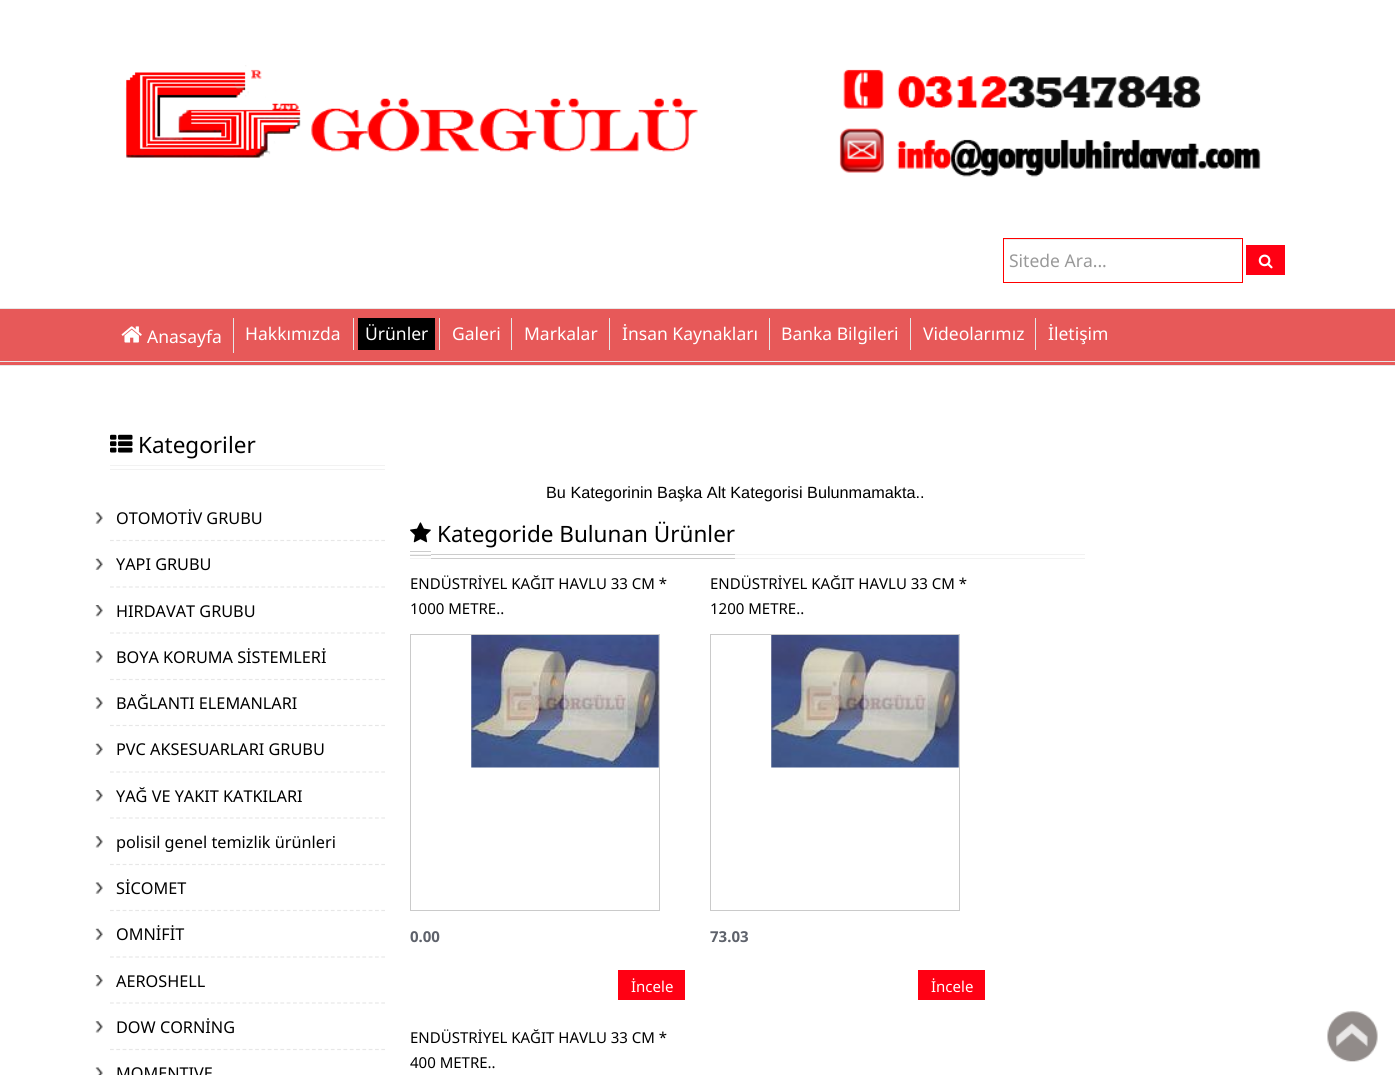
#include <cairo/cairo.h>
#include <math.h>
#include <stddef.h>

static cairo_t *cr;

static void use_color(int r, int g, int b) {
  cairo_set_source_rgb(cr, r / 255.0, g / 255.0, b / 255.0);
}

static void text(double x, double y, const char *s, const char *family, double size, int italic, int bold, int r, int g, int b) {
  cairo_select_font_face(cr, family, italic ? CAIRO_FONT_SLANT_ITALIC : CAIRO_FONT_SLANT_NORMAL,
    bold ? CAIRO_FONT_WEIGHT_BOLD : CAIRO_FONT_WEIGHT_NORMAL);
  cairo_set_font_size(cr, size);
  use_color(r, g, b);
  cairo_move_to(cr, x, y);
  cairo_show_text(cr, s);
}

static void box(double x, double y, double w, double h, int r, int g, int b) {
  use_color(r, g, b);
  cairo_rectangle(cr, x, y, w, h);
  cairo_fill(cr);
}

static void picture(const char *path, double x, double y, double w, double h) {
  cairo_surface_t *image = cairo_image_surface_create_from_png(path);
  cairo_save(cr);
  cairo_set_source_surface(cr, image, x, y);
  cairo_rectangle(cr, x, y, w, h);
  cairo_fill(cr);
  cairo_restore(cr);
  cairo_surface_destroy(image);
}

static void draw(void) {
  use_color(255, 255, 255);
  cairo_paint(cr);
  picture("img_01.png", 120, 65, 578, 93);
  picture("img_02.png", 839, 69, 422, 108);
  box(1004, 239, 237, 1, 236, 236, 236);
  cairo_rectangle(cr, 1003.5, 238.5, 239, 44);
  use_color(255, 0, 0);
  cairo_set_line_width(cr, 1);
  cairo_stroke(cr);
  box(1246, 245, 39, 30, 255, 0, 19);
  picture("img_03.png", 1258, 254, 15, 15);
  box(0, 309, 1395, 56, 231, 89, 89);
  box(0, 308, 1395, 1, 231, 231, 231);
  box(0, 361, 1395, 1, 231, 231, 231);
  box(0, 365, 1395, 1, 231, 231, 231);
  box(233, 318, 1, 35, 231, 231, 231);
  picture("img_04.png", 121, 326, 21, 17);
  box(353, 318, 1, 32, 231, 231, 231);
  box(439, 318, 1, 32, 231, 231, 231);
  box(358, 318, 77, 32, 0, 0, 0);
  box(511, 318, 1, 32, 231, 231, 231);
  box(609, 318, 1, 32, 231, 231, 231);
  box(769, 318, 1, 32, 231, 231, 231);
  box(910, 318, 1, 32, 231, 231, 231);
  box(1035, 318, 1, 32, 231, 231, 231);
  box(110, 465, 275, 1, 242, 242, 242);
  box(110, 469, 275, 1, 242, 242, 242);
  picture("img_05.png", 110, 434, 23, 19);
  cairo_new_path(cr);
  cairo_move_to(cr, 110, 540.5);
  cairo_line_to(cr, 385, 540.5);
  use_color(231, 231, 231);
  cairo_set_line_width(cr, 1.2);
  cairo_set_dash(cr, (double[]){3.75, 2.56}, 2, 0);
  cairo_stroke(cr);
  picture("img_06.png", 95, 512, 8, 12);
  cairo_new_path(cr);
  cairo_move_to(cr, 110, 587);
  cairo_line_to(cr, 385, 587);
  cairo_stroke(cr);
  picture("img_07.png", 95, 558, 8, 12);
  cairo_new_path(cr);
  cairo_move_to(cr, 110, 633);
  cairo_line_to(cr, 385, 633);
  cairo_stroke(cr);
  picture("img_08.png", 95, 605, 8, 12);
  cairo_new_path(cr);
  cairo_move_to(cr, 110, 679.5);
  cairo_line_to(cr, 385, 679.5);
  cairo_stroke(cr);
  picture("img_09.png", 95, 651, 8, 12);
  cairo_new_path(cr);
  cairo_move_to(cr, 110, 725.5);
  cairo_line_to(cr, 385, 725.5);
  cairo_stroke(cr);
  picture("img_10.png", 95, 697, 8, 12);
  cairo_new_path(cr);
  cairo_move_to(cr, 110, 772);
  cairo_line_to(cr, 385, 772);
  cairo_stroke(cr);
  picture("img_07.png", 95, 743, 8, 12);
  cairo_new_path(cr);
  cairo_move_to(cr, 110, 818);
  cairo_line_to(cr, 385, 818);
  cairo_stroke(cr);
  picture("img_08.png", 95, 790, 8, 12);
  cairo_new_path(cr);
  cairo_move_to(cr, 110, 864.5);
  cairo_line_to(cr, 385, 864.5);
  cairo_stroke(cr);
  picture("img_09.png", 95, 836, 8, 12);
  cairo_new_path(cr);
  cairo_move_to(cr, 110, 910.5);
  cairo_line_to(cr, 385, 910.5);
  cairo_stroke(cr);
  picture("img_10.png", 95, 882, 8, 12);
  cairo_new_path(cr);
  cairo_move_to(cr, 110, 957);
  cairo_line_to(cr, 385, 957);
  cairo_stroke(cr);
  picture("img_07.png", 95, 928, 8, 12);
  cairo_new_path(cr);
  cairo_move_to(cr, 110, 1003);
  cairo_line_to(cr, 385, 1003);
  cairo_stroke(cr);
  picture("img_08.png", 95, 975, 8, 12);
  cairo_new_path(cr);
  cairo_move_to(cr, 110, 1049.5);
  cairo_line_to(cr, 385, 1049.5);
  cairo_stroke(cr);
  picture("img_11.png", 95, 1021, 8, 12);
  picture("img_12.png", 95, 1067, 8, 8);
  box(410, 554, 675, 1, 242, 242, 242);
  box(410, 558, 675, 1, 242, 242, 242);
  box(410, 551, 21, 1, 204, 204, 204);
  box(410, 555, 21, 1, 204, 204, 204);
  box(431, 554, 304, 1, 204, 204, 204);
  box(431, 558, 304, 1, 204, 204, 204);
  picture("img_13.png", 410, 522, 21, 21);
  cairo_rectangle(cr, 410.5, 634.5, 249, 276);
  use_color(202, 202, 202);
  cairo_set_line_width(cr, 1);
  cairo_set_dash(cr, NULL, 0, 0);
  cairo_stroke(cr);
  picture("img_14.png", 471, 635, 188, 133);
  box(618, 970, 67, 30, 255, 0, 19);
  cairo_rectangle(cr, 710.5, 634.5, 249, 276);
  use_color(202, 202, 202);
  cairo_stroke(cr);
  picture("img_15.png", 771, 635, 188, 133);
  box(918, 970, 67, 30, 255, 0, 19);
  picture("img_16.png", 1327, 1011, 51, 51);
  text(1009, 267, "Sitede Ara...", "Noto Sans", 17.5, 0, 0, 153, 153, 153);
  text(147, 343, "Anasayfa", "Noto Sans", 17.5, 0, 0, 255, 255, 255);
  text(245, 340, "Hakkımızda", "Noto Sans", 17.5, 0, 0, 255, 255, 255);
  text(365, 340, "Ürünler", "Noto Sans", 17.5, 0, 0, 255, 255, 255);
  text(452, 340, "Galeri", "Noto Sans", 17.5, 0, 0, 255, 255, 255);
  text(524, 340, "Markalar", "Noto Sans", 17.5, 0, 0, 255, 255, 255);
  text(622, 340, "İnsan Kaynakları", "Noto Sans", 17.5, 0, 0, 255, 255, 255);
  text(781, 340, "Banka Bilgileri", "Noto Sans", 17.5, 0, 0, 255, 255, 255);
  text(923, 340, "Videolarımız", "Noto Sans", 17.5, 0, 0, 255, 255, 255);
  text(1048, 340, "İletişim", "Noto Sans", 17.5, 0, 0, 255, 255, 255);
  text(138, 453, "Kategoriler", "Noto Sans", 22.5, 0, 0, 0, 0, 0);
  text(116, 524, "OTOMOTİV GRUBU", "Noto Sans", 16.25, 0, 0, 0, 0, 0);
  text(116, 570, "YAPI GRUBU", "Noto Sans", 16.25, 0, 0, 0, 0, 0);
  text(116, 617, "HIRDAVAT GRUBU", "Noto Sans", 16.25, 0, 0, 0, 0, 0);
  text(116, 663, "BOYA KORUMA SİSTEMLERİ", "Noto Sans", 16.25, 0, 0, 0, 0, 0);
  text(116, 709, "BAĞLANTI ELEMANLARI", "Noto Sans", 16.25, 0, 0, 0, 0, 0);
  text(116, 755, "PVC AKSESUARLARI GRUBU", "Noto Sans", 16.25, 0, 0, 0, 0, 0);
  text(116, 802, "YAĞ VE YAKIT KATKILARI", "Noto Sans", 16.25, 0, 0, 0, 0, 0);
  text(116, 848, "polisil genel temizlik ürünleri", "Noto Sans", 16.25, 0, 0, 0, 0, 0);
  text(116, 894, "SİCOMET", "Noto Sans", 16.25, 0, 0, 0, 0, 0);
  text(116, 940, "OMNİFİT", "Noto Sans", 16.25, 0, 0, 0, 0, 0);
  text(116, 987, "AEROSHELL", "Noto Sans", 16.25, 0, 0, 0, 0, 0);
  text(116, 1033, "DOW CORNİNG", "Noto Sans", 16.25, 0, 0, 0, 0, 0);
  text(116, 1079, "MOMENTIVE", "Noto Sans", 16.25, 0, 0, 0, 0, 0);
  text(546, 498, "Bu Kategorinin Başka Alt Kategorisi Bulunmamakta..", "Liberation Sans", 16.25, 0, 0, 0, 0, 0);
  text(437, 542, "Kategoride Bulunan Ürünler", "Noto Sans", 22.5, 0, 0, 0, 0, 0);
  text(410, 589, "ENDÜSTRİYEL KAĞIT HAVLU 33 CM *", "Noto Sans", 15, 0, 0, 0, 0, 0);
  text(410, 614, "1000 METRE..", "Noto Sans", 15, 0, 0, 0, 0, 0);
  text(410, 942, "0.00", "Noto Sans", 15, 0, 1, 94, 98, 107);
  text(631, 992, "İncele", "Noto Sans", 15, 0, 0, 255, 255, 255);
  text(710, 589, "ENDÜSTRİYEL KAĞIT HAVLU 33 CM *", "Noto Sans", 15, 0, 0, 0, 0, 0);
  text(710, 614, "1200 METRE..", "Noto Sans", 15, 0, 0, 0, 0, 0);
  text(710, 942, "73.03", "Noto Sans", 15, 0, 1, 94, 98, 107);
  text(931, 992, "İncele", "Noto Sans", 15, 0, 0, 255, 255, 255);
  text(410, 1043, "ENDÜSTRİYEL KAĞIT HAVLU 33 CM *", "Noto Sans", 15, 0, 0, 0, 0, 0);
  text(410, 1068, "400 METRE..", "Noto Sans", 15, 0, 0, 0, 0, 0);
}

int main(void) {
  cairo_surface_t *surface = cairo_image_surface_create(CAIRO_FORMAT_RGB24, 1395, 1075);
  cr = cairo_create(surface);
  cairo_font_options_t *options = cairo_font_options_create();
  cairo_font_options_set_hint_metrics(options, CAIRO_HINT_METRICS_OFF);
  cairo_font_options_set_hint_style(options, CAIRO_HINT_STYLE_NONE);
  cairo_set_font_options(cr, options);
  cairo_set_miter_limit(cr, 4);
  draw();
  cairo_surface_write_to_png(surface, "out.png");
  cairo_font_options_destroy(options);
  cairo_destroy(cr);
  cairo_surface_destroy(surface);
  return 0;
}
